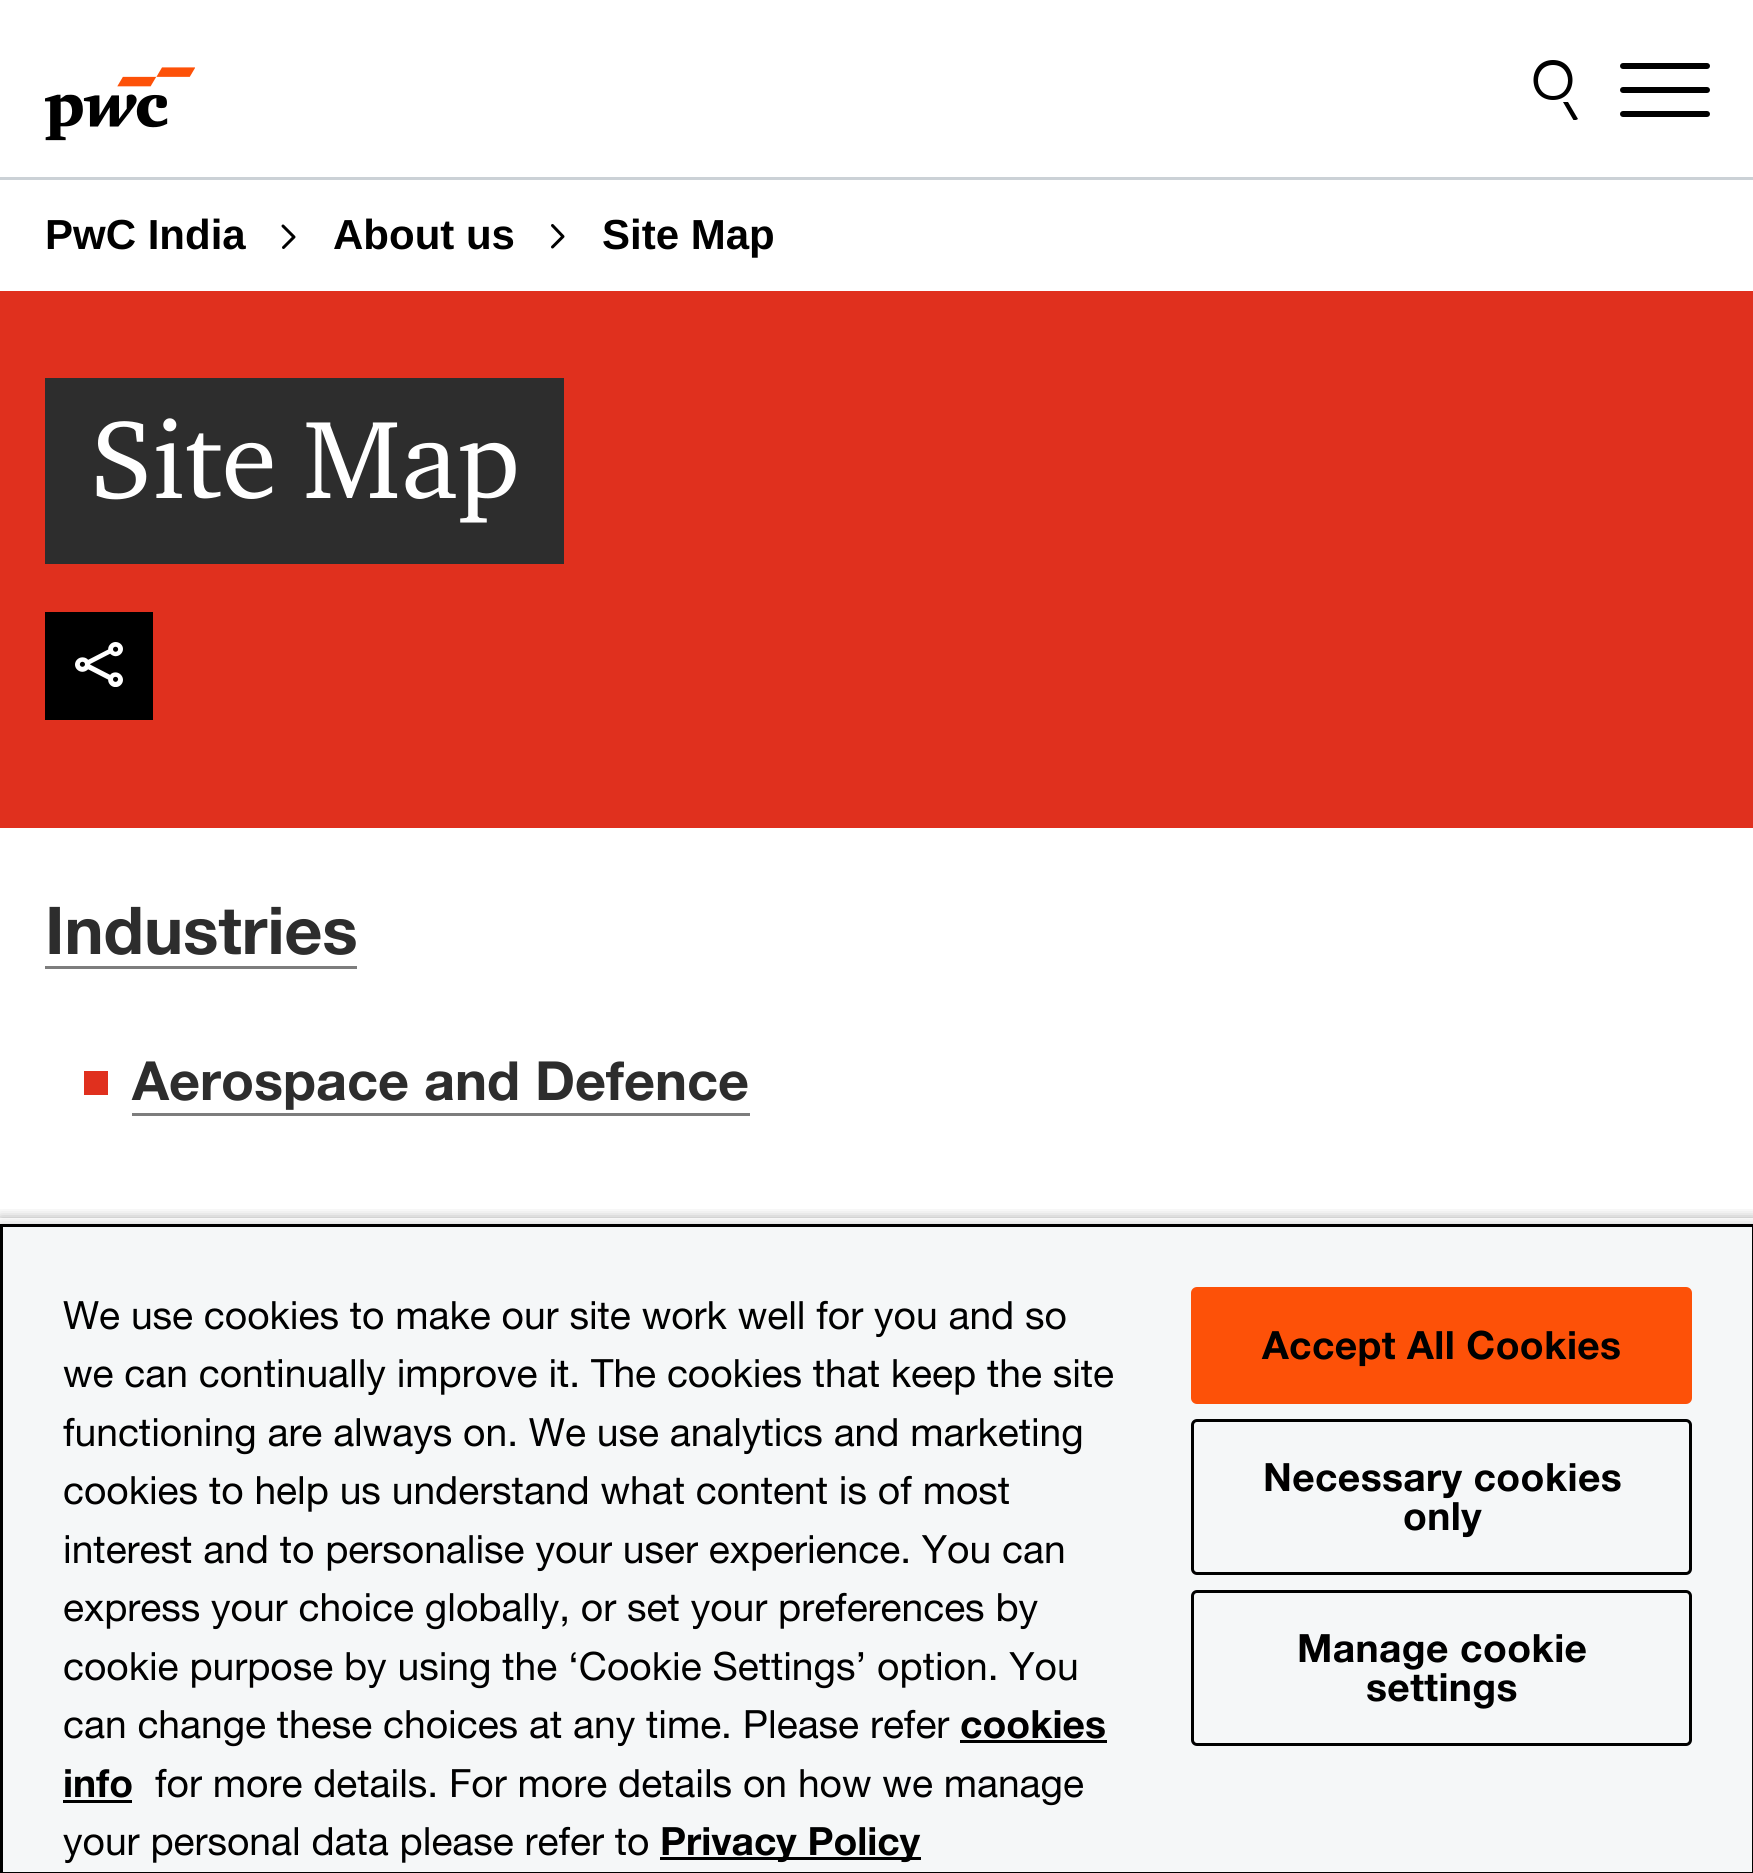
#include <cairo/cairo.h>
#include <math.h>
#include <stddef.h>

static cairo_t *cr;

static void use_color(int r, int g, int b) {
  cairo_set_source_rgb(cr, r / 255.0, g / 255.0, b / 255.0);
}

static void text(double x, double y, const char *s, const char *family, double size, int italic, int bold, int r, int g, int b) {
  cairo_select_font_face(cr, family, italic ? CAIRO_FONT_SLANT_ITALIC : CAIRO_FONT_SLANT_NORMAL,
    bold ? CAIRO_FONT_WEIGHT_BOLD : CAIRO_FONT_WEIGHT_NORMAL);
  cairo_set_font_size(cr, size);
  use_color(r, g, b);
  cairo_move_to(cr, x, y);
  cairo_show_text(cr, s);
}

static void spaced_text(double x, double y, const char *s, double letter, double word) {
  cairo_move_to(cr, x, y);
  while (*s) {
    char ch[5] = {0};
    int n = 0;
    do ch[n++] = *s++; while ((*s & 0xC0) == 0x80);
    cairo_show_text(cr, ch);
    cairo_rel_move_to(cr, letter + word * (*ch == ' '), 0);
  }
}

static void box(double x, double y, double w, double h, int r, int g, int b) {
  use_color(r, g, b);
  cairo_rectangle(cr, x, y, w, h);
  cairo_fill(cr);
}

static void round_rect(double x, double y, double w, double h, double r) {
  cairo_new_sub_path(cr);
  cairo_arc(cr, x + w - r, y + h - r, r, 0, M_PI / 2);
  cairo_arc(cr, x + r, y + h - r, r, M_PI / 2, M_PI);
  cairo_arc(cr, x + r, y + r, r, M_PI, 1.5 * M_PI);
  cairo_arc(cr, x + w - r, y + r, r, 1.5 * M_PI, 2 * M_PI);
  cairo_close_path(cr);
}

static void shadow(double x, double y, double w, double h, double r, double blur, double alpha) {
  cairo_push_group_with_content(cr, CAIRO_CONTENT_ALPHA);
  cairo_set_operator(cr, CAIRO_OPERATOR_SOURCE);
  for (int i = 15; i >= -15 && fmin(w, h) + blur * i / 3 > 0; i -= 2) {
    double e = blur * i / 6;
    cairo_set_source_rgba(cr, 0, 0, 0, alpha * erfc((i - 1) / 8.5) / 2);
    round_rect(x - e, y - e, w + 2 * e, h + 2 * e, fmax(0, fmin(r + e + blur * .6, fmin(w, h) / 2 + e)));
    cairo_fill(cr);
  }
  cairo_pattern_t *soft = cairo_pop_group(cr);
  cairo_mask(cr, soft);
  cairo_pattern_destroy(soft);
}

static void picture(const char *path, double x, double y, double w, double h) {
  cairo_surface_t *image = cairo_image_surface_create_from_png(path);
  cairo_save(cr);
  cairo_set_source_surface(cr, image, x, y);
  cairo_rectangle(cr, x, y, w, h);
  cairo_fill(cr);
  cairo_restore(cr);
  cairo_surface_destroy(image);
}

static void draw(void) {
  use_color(255, 255, 255);
  cairo_paint(cr);
  box(0, 177, 1753, 3, 203, 209, 214);
  picture("img_01.png", 45, 67, 150, 74);
  cairo_save(cr);
  cairo_rectangle(cr, 1533, 60, 45, 60);
  cairo_clip(cr);
  use_color(0, 0, 0);
  cairo_new_path(cr);
  cairo_move_to(cr, 1568, 102);
  cairo_line_to(cr, 1578, 119);
  cairo_line_to(cr, 1574, 121);
  cairo_line_to(cr, 1563, 102);
  cairo_close_path(cr);
  cairo_move_to(cr, 1553, 60);
  cairo_curve_to(cr, 1579, 60, 1579, 100, 1553, 100);
  cairo_curve_to(cr, 1527, 100, 1527, 60, 1553, 60);
  cairo_close_path(cr);
  cairo_move_to(cr, 1553, 96);
  cairo_curve_to(cr, 1573, 96, 1573, 65, 1553, 65);
  cairo_curve_to(cr, 1533, 65, 1533, 96, 1553, 96);
  cairo_close_path(cr);
  cairo_fill(cr);
  cairo_restore(cr);
  use_color(0, 0, 0);
  round_rect(1620, 63, 90, 6, 3);
  cairo_fill(cr);
  round_rect(1620, 87, 90, 6, 3);
  cairo_fill(cr);
  round_rect(1620, 111, 90, 6, 3);
  cairo_fill(cr);
  cairo_new_path(cr);
  cairo_move_to(cr, 283.5, 247.5);
  cairo_line_to(cr, 294, 237);
  cairo_line_to(cr, 283, 226);
  cairo_set_line_width(cr, 3);
  cairo_set_line_cap(cr, CAIRO_LINE_CAP_ROUND);
  cairo_set_line_join(cr, CAIRO_LINE_JOIN_ROUND);
  cairo_stroke(cr);
  cairo_new_path(cr);
  cairo_move_to(cr, 552.5, 247);
  cairo_line_to(cr, 563, 236.5);
  cairo_line_to(cr, 552.5, 225.5);
  cairo_stroke(cr);
  box(0, 291, 1753, 537, 224, 48, 30);
  box(45, 378, 45, 186, 45, 45, 45);
  box(90, 378, 474, 186, 45, 45, 45);
  picture("img_02.png", 96, 418, 420, 105);
  box(45, 612, 108, 108, 0, 0, 0);
  picture("img_03.png", 75, 642, 48, 45);
  box(45, 966, 312, 3, 125, 125, 125);
  box(84, 1071, 24, 24, 224, 48, 30);
  box(132, 1113, 618, 3, 125, 125, 125);
  cairo_save(cr);
  cairo_rectangle(cr, 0, 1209, 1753, 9);
  cairo_clip(cr);
  use_color(0, 0, 0);
  shadow(0, 1218, 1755, 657, 0, 6, 0.35);
  cairo_restore(cr);
  cairo_save(cr);
  cairo_rectangle(cr, 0, 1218, 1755, 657);
  cairo_clip(cr);
  use_color(0, 0, 0);
  shadow(0, 1224, 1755, 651, 0, 6, 0.2);
  cairo_restore(cr);
  use_color(245, 247, 248);
  cairo_rectangle(cr, 1.5, 1225.5, 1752, 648);
  cairo_fill_preserve(cr);
  use_color(0, 0, 0);
  cairo_set_line_cap(cr, CAIRO_LINE_CAP_BUTT);
  cairo_set_line_join(cr, CAIRO_LINE_JOIN_MITER);
  cairo_stroke(cr);
  box(960, 1740, 147, 3, 0, 0, 0);
  box(63, 1800, 69, 3, 0, 0, 0);
  box(660, 1857, 261, 3, 0, 0, 0);
  use_color(253, 81, 8);
  round_rect(1192.5, 1288.5, 498, 114, 4.5);
  cairo_fill_preserve(cr);
  cairo_stroke(cr);
  round_rect(1192.5, 1420.5, 498, 153, 4.5);
  use_color(0, 0, 0);
  cairo_stroke(cr);
  round_rect(1192.5, 1591.5, 498, 153, 4.5);
  cairo_stroke(cr);
  text(45, 249, "PwC India", "Liberation Sans", 42, 0, 1, 0, 0, 0);
  text(333, 249, "About us", "Liberation Sans", 42, 0, 1, 0, 0, 0);
  text(602, 249, "Site Map", "Liberation Sans", 42, 0, 1, 0, 0, 0);
  text(45, 954, "Industries", "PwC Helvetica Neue", 66, 0, 1, 45, 45, 45);
  text(132, 1100, "Aerospace and Defence", "PwC Helvetica Neue", 54, 0, 1, 45, 45, 45);
  text(63, 1329, "We use cookies to make our site work well for you and so", "PwC Helvetica Neue", 39, 0, 0, 0, 0, 0);
  text(63, 1387, "we can continually improve it. The cookies that keep the site", "PwC Helvetica Neue", 39, 0, 0, 0, 0, 0);
  text(63, 1446, "functioning are always on. We use analytics and marketing", "PwC Helvetica Neue", 39, 0, 0, 0, 0, 0);
  text(63, 1504, "cookies to help us understand what content is of most", "PwC Helvetica Neue", 39, 0, 0, 0, 0, 0);
  text(63, 1563, "interest and to personalise your user experience. You can", "PwC Helvetica Neue", 39, 0, 0, 0, 0, 0);
  text(63, 1621, "express your choice globally, or set your preferences by", "PwC Helvetica Neue", 39, 0, 0, 0, 0, 0);
  text(63, 1680, "cookie purpose by using the ‘Cookie Settings’ option. You", "PwC Helvetica Neue", 39, 0, 0, 0, 0, 0);
  text(63, 1738, "can change these choices at any time. Please refer", "PwC Helvetica Neue", 39, 0, 0, 0, 0, 0);
  text(960, 1738, "cookies", "PwC Helvetica Neue", 39, 0, 1, 0, 0, 0);
  text(63, 1797, "info", "PwC Helvetica Neue", 39, 0, 1, 0, 0, 0);
  text(155, 1797, "for more details. For more details on how we manage", "PwC Helvetica Neue", 39, 0, 0, 0, 0, 0);
  text(63, 1855, "your personal data please refer to", "PwC Helvetica Neue", 39, 0, 0, 0, 0, 0);
  text(660, 1855, "Privacy Policy", "PwC Helvetica Neue", 39, 0, 1, 0, 0, 0);
  spaced_text(1262, 1359, "Accept All Cookies", 0.4, 0);
  spaced_text(1263, 1491, "Necessary cookies", 0.4, 0);
  spaced_text(1403, 1530, "only", 0.4, 0);
  spaced_text(1297, 1662, "Manage cookie", 0.4, 0);
  spaced_text(1366, 1701, "settings", 0.4, 0);
}

int main(void) {
  cairo_surface_t *surface = cairo_image_surface_create(CAIRO_FORMAT_RGB24, 1753, 1873);
  cr = cairo_create(surface);
  cairo_font_options_t *options = cairo_font_options_create();
  cairo_font_options_set_hint_metrics(options, CAIRO_HINT_METRICS_OFF);
  cairo_font_options_set_hint_style(options, CAIRO_HINT_STYLE_NONE);
  cairo_set_font_options(cr, options);
  cairo_set_miter_limit(cr, 4);
  draw();
  cairo_surface_write_to_png(surface, "out.png");
  cairo_font_options_destroy(options);
  cairo_destroy(cr);
  cairo_surface_destroy(surface);
  return 0;
}
